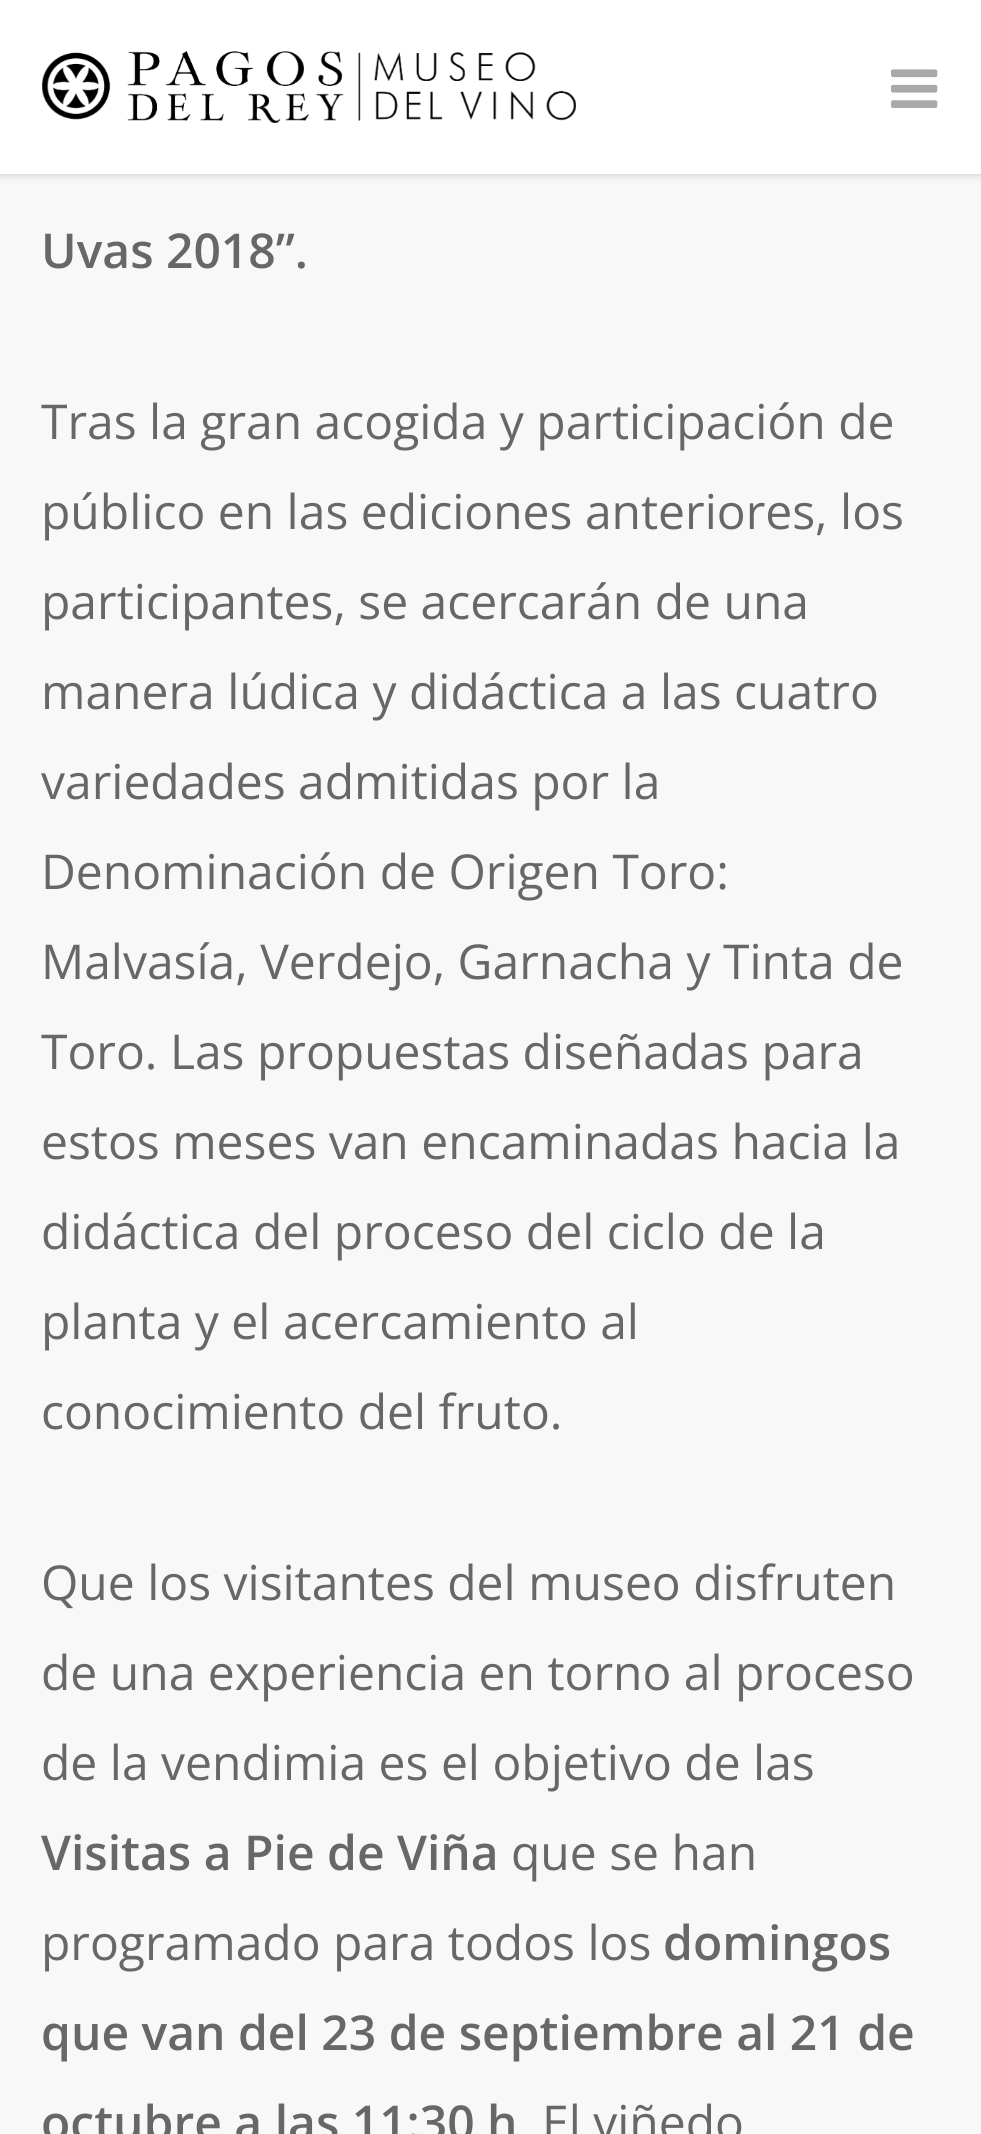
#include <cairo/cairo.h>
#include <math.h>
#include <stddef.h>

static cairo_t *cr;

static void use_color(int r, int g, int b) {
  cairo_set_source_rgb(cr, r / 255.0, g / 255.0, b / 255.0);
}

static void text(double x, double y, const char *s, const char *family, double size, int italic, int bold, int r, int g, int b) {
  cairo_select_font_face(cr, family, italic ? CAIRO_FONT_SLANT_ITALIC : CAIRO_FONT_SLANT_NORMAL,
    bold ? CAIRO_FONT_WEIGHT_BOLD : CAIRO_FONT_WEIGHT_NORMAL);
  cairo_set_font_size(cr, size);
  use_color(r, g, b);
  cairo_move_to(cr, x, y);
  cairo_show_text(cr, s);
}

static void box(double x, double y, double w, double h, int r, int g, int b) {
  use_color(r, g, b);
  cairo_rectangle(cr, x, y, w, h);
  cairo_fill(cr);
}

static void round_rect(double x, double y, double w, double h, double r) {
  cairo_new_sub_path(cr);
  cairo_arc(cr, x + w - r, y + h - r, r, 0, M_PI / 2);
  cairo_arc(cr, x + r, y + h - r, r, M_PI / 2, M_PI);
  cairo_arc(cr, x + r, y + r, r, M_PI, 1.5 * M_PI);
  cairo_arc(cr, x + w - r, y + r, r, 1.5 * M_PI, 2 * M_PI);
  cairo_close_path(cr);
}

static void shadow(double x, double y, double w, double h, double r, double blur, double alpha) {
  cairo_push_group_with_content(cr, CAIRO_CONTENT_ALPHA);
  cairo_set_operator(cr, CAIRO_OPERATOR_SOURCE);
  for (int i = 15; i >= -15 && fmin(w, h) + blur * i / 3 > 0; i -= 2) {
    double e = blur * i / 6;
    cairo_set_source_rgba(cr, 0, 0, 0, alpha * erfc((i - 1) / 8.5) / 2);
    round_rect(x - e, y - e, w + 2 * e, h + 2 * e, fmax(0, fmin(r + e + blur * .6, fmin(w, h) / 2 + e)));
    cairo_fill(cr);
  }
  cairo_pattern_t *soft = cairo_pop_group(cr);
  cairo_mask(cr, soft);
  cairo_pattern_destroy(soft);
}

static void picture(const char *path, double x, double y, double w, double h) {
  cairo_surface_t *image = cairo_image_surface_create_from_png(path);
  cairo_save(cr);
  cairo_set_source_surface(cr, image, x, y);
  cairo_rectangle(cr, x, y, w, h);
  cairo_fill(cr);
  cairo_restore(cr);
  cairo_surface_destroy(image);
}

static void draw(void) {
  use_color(248, 248, 248);
  cairo_paint(cr);
  use_color(0, 0, 0);
  shadow(0, 0, 981, 174, 0, 4.5, 0.22);
  box(0, 0, 981, 174, 255, 255, 255);
  picture("img_01.png", 42, 51, 534, 72);
  picture("img_02.png", 891, 69, 47, 39);
  text(41, 268, "Uvas 2018”.", "Open Sans SemiBold", 48, 0, 0, 103, 103, 103);
  text(41, 439, "Tras la gran acogida y participación de", "Open Sans", 48, 0, 0, 103, 103, 103);
  text(41, 529, "público en las ediciones anteriores, los", "Open Sans", 48, 0, 0, 103, 103, 103);
  text(41, 619, "participantes, se acercarán de una", "Open Sans", 48, 0, 0, 103, 103, 103);
  text(41, 709, "manera lúdica y didáctica a las cuatro", "Open Sans", 48, 0, 0, 103, 103, 103);
  text(41, 799, "variedades admitidas por la", "Open Sans", 48, 0, 0, 103, 103, 103);
  text(41, 889, "Denominación de Origen Toro:", "Open Sans", 48, 0, 0, 103, 103, 103);
  text(41, 979, "Malvasía, Verdejo, Garnacha y Tinta de", "Open Sans", 48, 0, 0, 103, 103, 103);
  text(41, 1069, "Toro. Las propuestas diseñadas para", "Open Sans", 48, 0, 0, 103, 103, 103);
  text(41, 1159, "estos meses van encaminadas hacia la", "Open Sans", 48, 0, 0, 103, 103, 103);
  text(41, 1249, "didáctica del proceso del ciclo de la", "Open Sans", 48, 0, 0, 103, 103, 103);
  text(41, 1339, "planta y el acercamiento al", "Open Sans", 48, 0, 0, 103, 103, 103);
  text(41, 1429, "conocimiento del fruto.", "Open Sans", 48, 0, 0, 103, 103, 103);
  text(41, 1600, "Que los visitantes del museo disfruten", "Open Sans", 48, 0, 0, 103, 103, 103);
  text(41, 1690, "de una experiencia en torno al proceso", "Open Sans", 48, 0, 0, 103, 103, 103);
  text(41, 1780, "de la vendimia es el objetivo de las", "Open Sans", 48, 0, 0, 103, 103, 103);
  text(41, 1870, "Visitas a Pie de Viña", "Open Sans SemiBold", 48, 0, 0, 103, 103, 103);
  text(511, 1870, "que se han", "Open Sans", 48, 0, 0, 103, 103, 103);
  text(41, 1960, "programado para todos los", "Open Sans", 48, 0, 0, 103, 103, 103);
  text(663, 1960, "domingos", "Open Sans SemiBold", 48, 0, 0, 103, 103, 103);
  text(41, 2050, "que van del 23 de septiembre al 21 de", "Open Sans SemiBold", 48, 0, 0, 103, 103, 103);
  text(41, 2140, "octubre a las 11:30 h", "Open Sans SemiBold", 48, 0, 0, 103, 103, 103);
  text(542, 2140, "El viñedo", "Open Sans", 48, 0, 0, 103, 103, 103);
}

int main(void) {
  cairo_surface_t *surface = cairo_image_surface_create(CAIRO_FORMAT_RGB24, 981, 2134);
  cr = cairo_create(surface);
  cairo_font_options_t *options = cairo_font_options_create();
  cairo_font_options_set_hint_metrics(options, CAIRO_HINT_METRICS_OFF);
  cairo_font_options_set_hint_style(options, CAIRO_HINT_STYLE_NONE);
  cairo_set_font_options(cr, options);
  cairo_set_miter_limit(cr, 4);
  draw();
  cairo_surface_write_to_png(surface, "out.png");
  cairo_font_options_destroy(options);
  cairo_destroy(cr);
  cairo_surface_destroy(surface);
  return 0;
}
